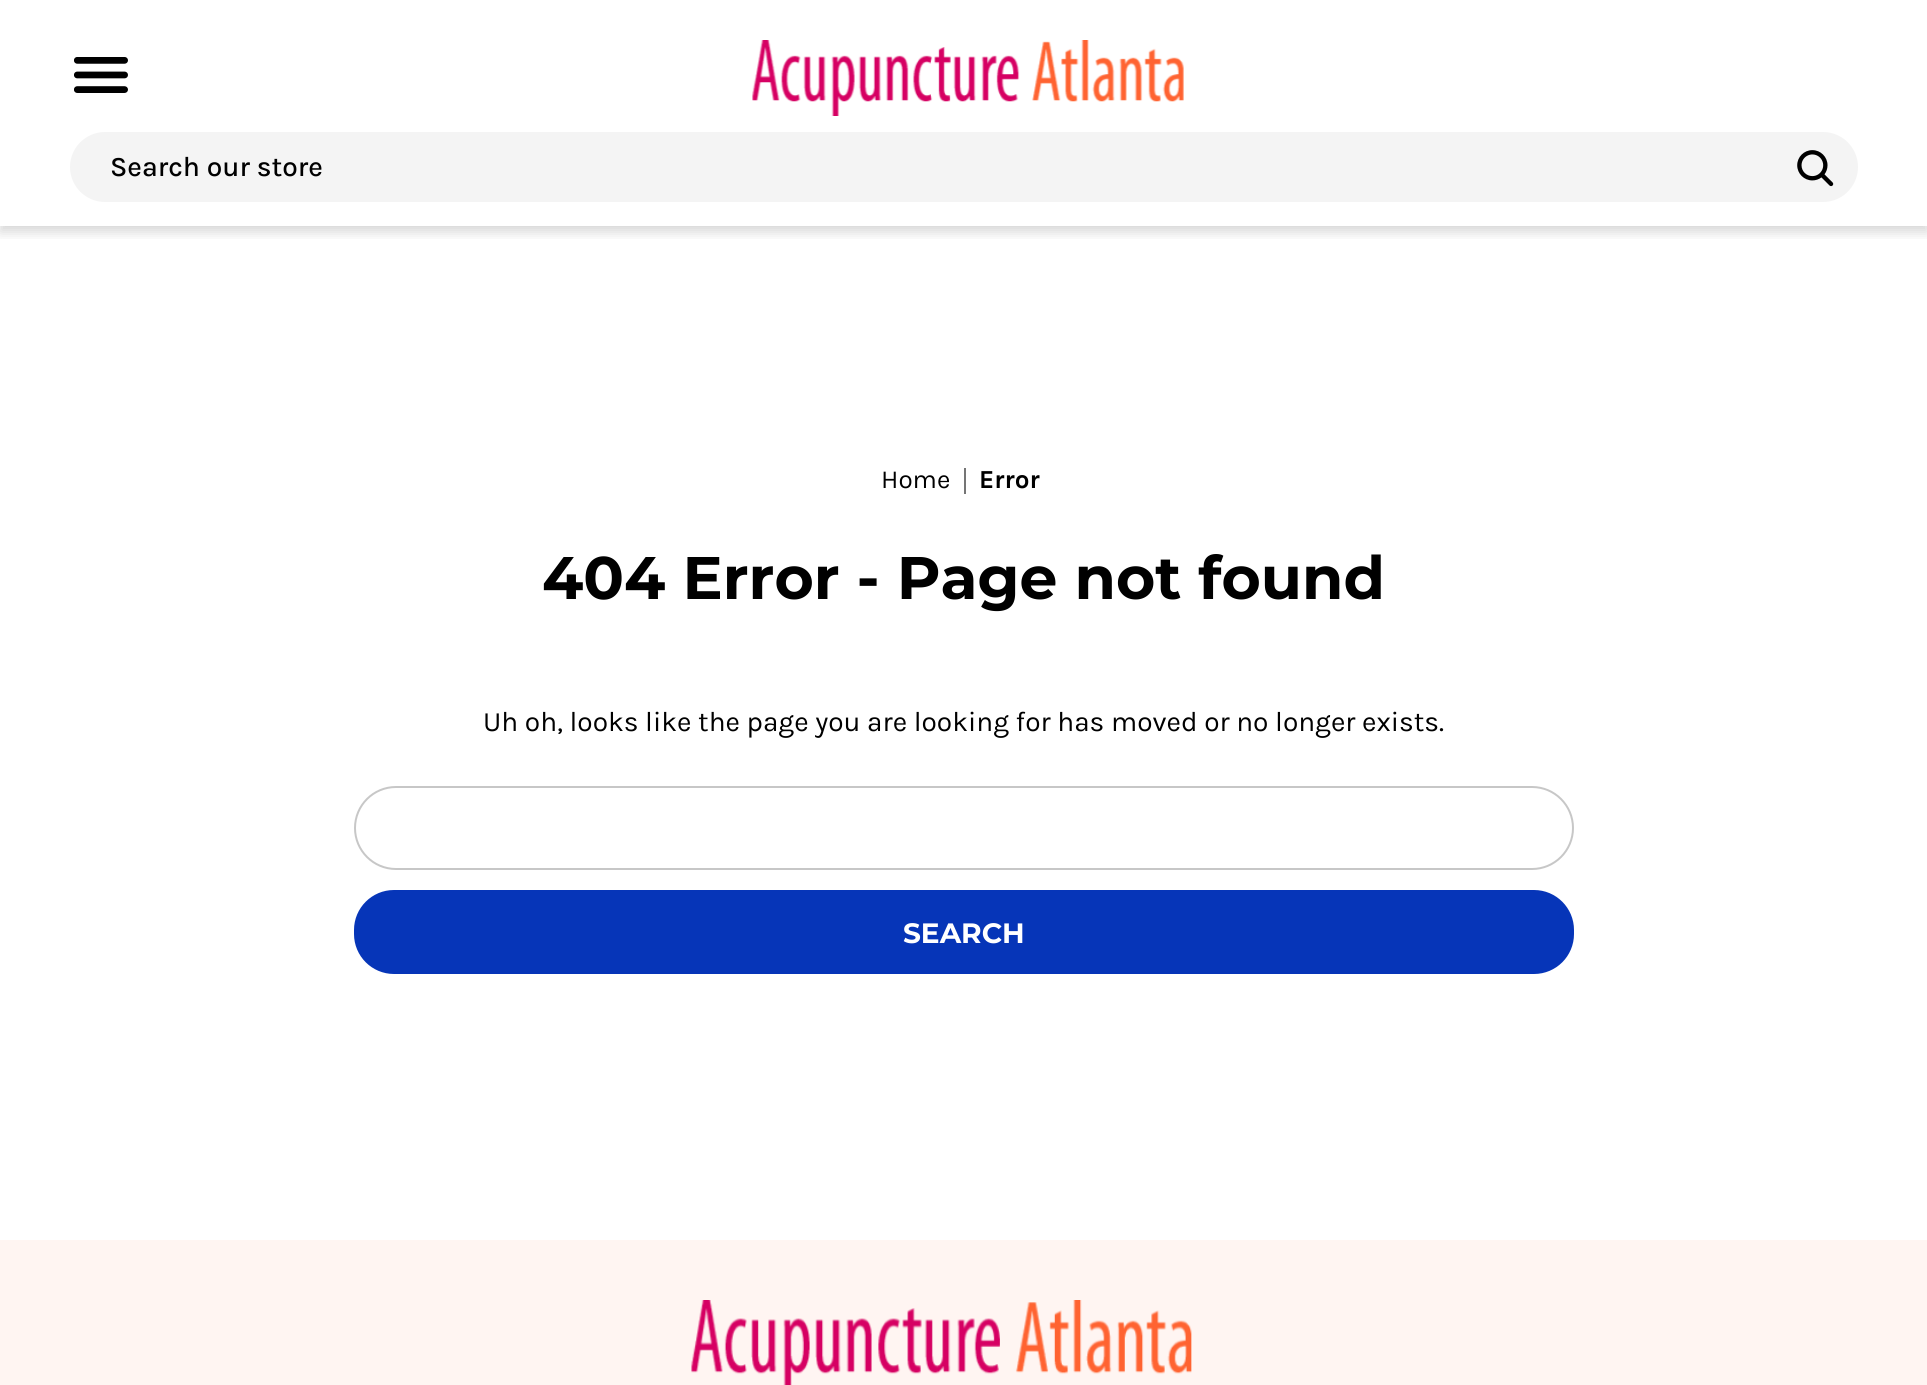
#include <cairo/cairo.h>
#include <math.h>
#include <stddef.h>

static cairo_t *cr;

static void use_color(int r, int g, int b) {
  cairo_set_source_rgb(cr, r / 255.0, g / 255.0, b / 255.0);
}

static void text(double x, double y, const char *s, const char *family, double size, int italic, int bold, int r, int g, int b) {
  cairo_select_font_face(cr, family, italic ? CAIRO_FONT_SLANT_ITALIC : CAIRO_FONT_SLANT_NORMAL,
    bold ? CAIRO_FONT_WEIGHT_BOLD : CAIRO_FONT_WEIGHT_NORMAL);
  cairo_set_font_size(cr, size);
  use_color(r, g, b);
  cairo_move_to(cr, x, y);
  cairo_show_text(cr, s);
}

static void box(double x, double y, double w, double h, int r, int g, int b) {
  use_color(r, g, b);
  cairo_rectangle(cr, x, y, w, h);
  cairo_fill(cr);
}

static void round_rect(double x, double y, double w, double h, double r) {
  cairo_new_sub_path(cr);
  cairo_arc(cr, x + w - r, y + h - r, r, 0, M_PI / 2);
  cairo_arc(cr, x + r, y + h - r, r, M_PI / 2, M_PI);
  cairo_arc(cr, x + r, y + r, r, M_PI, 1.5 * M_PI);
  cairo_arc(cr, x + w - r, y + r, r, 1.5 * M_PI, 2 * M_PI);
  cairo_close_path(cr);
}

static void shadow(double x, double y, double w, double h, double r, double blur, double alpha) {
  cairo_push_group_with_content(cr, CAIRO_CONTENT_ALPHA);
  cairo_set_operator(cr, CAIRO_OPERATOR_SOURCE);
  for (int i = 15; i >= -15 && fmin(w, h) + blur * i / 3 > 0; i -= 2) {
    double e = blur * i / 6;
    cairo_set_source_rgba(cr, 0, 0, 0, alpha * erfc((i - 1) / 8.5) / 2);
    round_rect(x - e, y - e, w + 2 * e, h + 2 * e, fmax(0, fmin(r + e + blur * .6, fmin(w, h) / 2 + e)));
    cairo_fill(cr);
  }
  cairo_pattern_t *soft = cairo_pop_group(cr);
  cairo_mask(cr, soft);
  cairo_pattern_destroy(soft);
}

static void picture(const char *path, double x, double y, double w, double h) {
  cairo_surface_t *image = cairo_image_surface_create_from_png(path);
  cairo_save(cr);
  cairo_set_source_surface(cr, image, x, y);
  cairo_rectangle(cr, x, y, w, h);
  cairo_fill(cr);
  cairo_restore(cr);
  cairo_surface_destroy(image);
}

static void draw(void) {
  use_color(255, 255, 255);
  cairo_paint(cr);
  cairo_save(cr);
  cairo_rectangle(cr, 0, 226, 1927, 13);
  cairo_clip(cr);
  use_color(0, 0, 0);
  shadow(0, 6, 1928, 226, 0, 6, 0.16);
  cairo_restore(cr);
  picture("img_01.png", 74, 57, 54, 36);
  picture("img_02.png", 752, 40, 432, 76);
  use_color(244, 244, 244);
  round_rect(70, 132, 1788, 70, 35);
  cairo_fill(cr);
  picture("img_03.png", 1797, 150, 37, 37);
  box(964, 468, 2, 26, 117, 117, 117);
  round_rect(355, 787, 1218, 82, 41);
  use_color(199, 199, 199);
  cairo_stroke(cr);
  use_color(6, 53, 184);
  round_rect(355, 891, 1218, 82, 39);
  cairo_fill_preserve(cr);
  cairo_stroke(cr);
  box(0, 1240, 1927, 145, 255, 245, 242);
  picture("img_04.png", 691, 1300, 501, 85);
  text(110, 176, "Search our store", "Karla Medium", 28, 0, 0, 0, 0, 0);
  text(881, 488, "Home", "Karla", 26, 0, 0, 0, 0, 0);
  text(979, 488, "Error", "Karla", 26, 0, 1, 0, 0, 0);
  text(542, 599, "404 Error - Page not found", "Montserrat", 60, 0, 1, 0, 0, 0);
  text(483, 731, "Uh oh, looks like the page you are looking for has moved or no longer exists.", "Karla", 28, 0, 0, 0, 0, 0);
  text(903, 943, "SEARCH", "Montserrat", 28, 0, 1, 255, 255, 255);
}

int main(void) {
  cairo_surface_t *surface = cairo_image_surface_create(CAIRO_FORMAT_RGB24, 1927, 1385);
  cr = cairo_create(surface);
  cairo_font_options_t *options = cairo_font_options_create();
  cairo_font_options_set_hint_metrics(options, CAIRO_HINT_METRICS_OFF);
  cairo_font_options_set_hint_style(options, CAIRO_HINT_STYLE_NONE);
  cairo_set_font_options(cr, options);
  cairo_set_miter_limit(cr, 4);
  draw();
  cairo_surface_write_to_png(surface, "out.png");
  cairo_font_options_destroy(options);
  cairo_destroy(cr);
  cairo_surface_destroy(surface);
  return 0;
}
